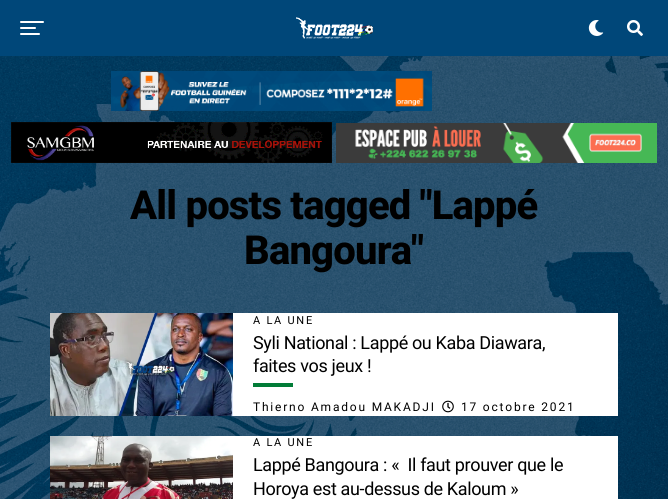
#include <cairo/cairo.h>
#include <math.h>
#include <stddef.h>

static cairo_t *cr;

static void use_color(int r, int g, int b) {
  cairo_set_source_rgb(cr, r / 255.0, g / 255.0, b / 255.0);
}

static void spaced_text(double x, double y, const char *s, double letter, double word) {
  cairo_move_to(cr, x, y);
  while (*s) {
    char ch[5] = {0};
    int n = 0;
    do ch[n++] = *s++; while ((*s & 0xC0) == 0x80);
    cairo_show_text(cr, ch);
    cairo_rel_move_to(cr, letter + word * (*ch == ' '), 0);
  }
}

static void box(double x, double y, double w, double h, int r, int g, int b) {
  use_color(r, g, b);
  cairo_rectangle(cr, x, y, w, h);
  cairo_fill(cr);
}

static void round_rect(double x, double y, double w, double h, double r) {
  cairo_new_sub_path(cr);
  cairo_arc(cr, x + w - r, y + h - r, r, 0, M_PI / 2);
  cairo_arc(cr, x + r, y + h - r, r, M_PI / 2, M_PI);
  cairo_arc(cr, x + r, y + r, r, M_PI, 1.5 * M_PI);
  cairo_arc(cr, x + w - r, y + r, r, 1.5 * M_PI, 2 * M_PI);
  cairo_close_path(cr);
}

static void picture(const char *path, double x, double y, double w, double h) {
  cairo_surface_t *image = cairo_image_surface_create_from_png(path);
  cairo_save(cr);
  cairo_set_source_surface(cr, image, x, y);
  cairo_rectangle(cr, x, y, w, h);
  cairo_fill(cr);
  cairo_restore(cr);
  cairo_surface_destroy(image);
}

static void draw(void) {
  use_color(255, 255, 255);
  cairo_paint(cr);
  picture("img_01.png", 0, 56, 668, 443);
  box(0, 0, 668, 56, 0, 71, 121);
  use_color(255, 255, 255);
  round_rect(20, 21, 24, 2, 1);
  cairo_fill(cr);
  round_rect(20, 27, 16, 2, 1);
  cairo_fill(cr);
  round_rect(20, 33, 20, 2, 1);
  cairo_fill(cr);
  picture("img_02.png", 296, 17, 77, 22);
  picture("img_03.png", 588, 20, 16, 16);
  picture("img_04.png", 627, 20, 16, 16);
  picture("img_05.png", 111, 71, 321, 40);
  picture("img_06.png", 11, 122, 321, 41);
  picture("img_07.png", 336, 123, 321, 40);
  box(233, 313, 385, 103, 255, 255, 255);
  picture("img_08.png", 50, 313, 183, 103);
  box(253, 383, 40, 4, 2, 124, 55);
  picture("img_09.png", 442, 400, 12, 13);
  box(233, 436, 385, 63, 255, 255, 255);
  picture("img_10.png", 50, 436, 183, 63);
  cairo_select_font_face(cr, "Roboto ExtraBold", CAIRO_FONT_SLANT_NORMAL, CAIRO_FONT_WEIGHT_NORMAL);
  cairo_set_font_size(cr, 40);
  use_color(0, 0, 0);
  spaced_text(130, 219, "All posts tagged \"Lappé", -0.8, 0);
  spaced_text(244, 264, "Bangoura\"", -0.8, 0);
  cairo_select_font_face(cr, "Roboto", CAIRO_FONT_SLANT_NORMAL, CAIRO_FONT_WEIGHT_NORMAL);
  cairo_set_font_size(cr, 11);
  spaced_text(253, 324, "A LA UNE", 1.75, 0);
  cairo_set_font_size(cr, 18);
  spaced_text(253, 349, "Syli National : Lappé ou Kaba Diawara,", -0.35, 0);
  spaced_text(253, 372, "faites vos jeux !", -0.35, 0);
  cairo_set_font_size(cr, 12);
  spaced_text(253, 411, "Thierno Amadou MAKADJI", 1.8, 0);
  spaced_text(461, 411, "17 octobre 2021", 1.8, 0);
  cairo_set_font_size(cr, 11);
  spaced_text(253, 446, "A LA UNE", 1.75, 0);
  cairo_set_font_size(cr, 18);
  spaced_text(253, 471, "Lappé Bangoura : «  Il faut prouver que le", -0.35, 0);
  spaced_text(253, 495, "Horoya est au-dessus de Kaloum »", -0.35, 0);
}

int main(void) {
  cairo_surface_t *surface = cairo_image_surface_create(CAIRO_FORMAT_RGB24, 668, 499);
  cr = cairo_create(surface);
  cairo_font_options_t *options = cairo_font_options_create();
  cairo_font_options_set_hint_metrics(options, CAIRO_HINT_METRICS_OFF);
  cairo_font_options_set_hint_style(options, CAIRO_HINT_STYLE_NONE);
  cairo_set_font_options(cr, options);
  cairo_set_miter_limit(cr, 4);
  draw();
  cairo_surface_write_to_png(surface, "out.png");
  cairo_font_options_destroy(options);
  cairo_destroy(cr);
  cairo_surface_destroy(surface);
  return 0;
}
